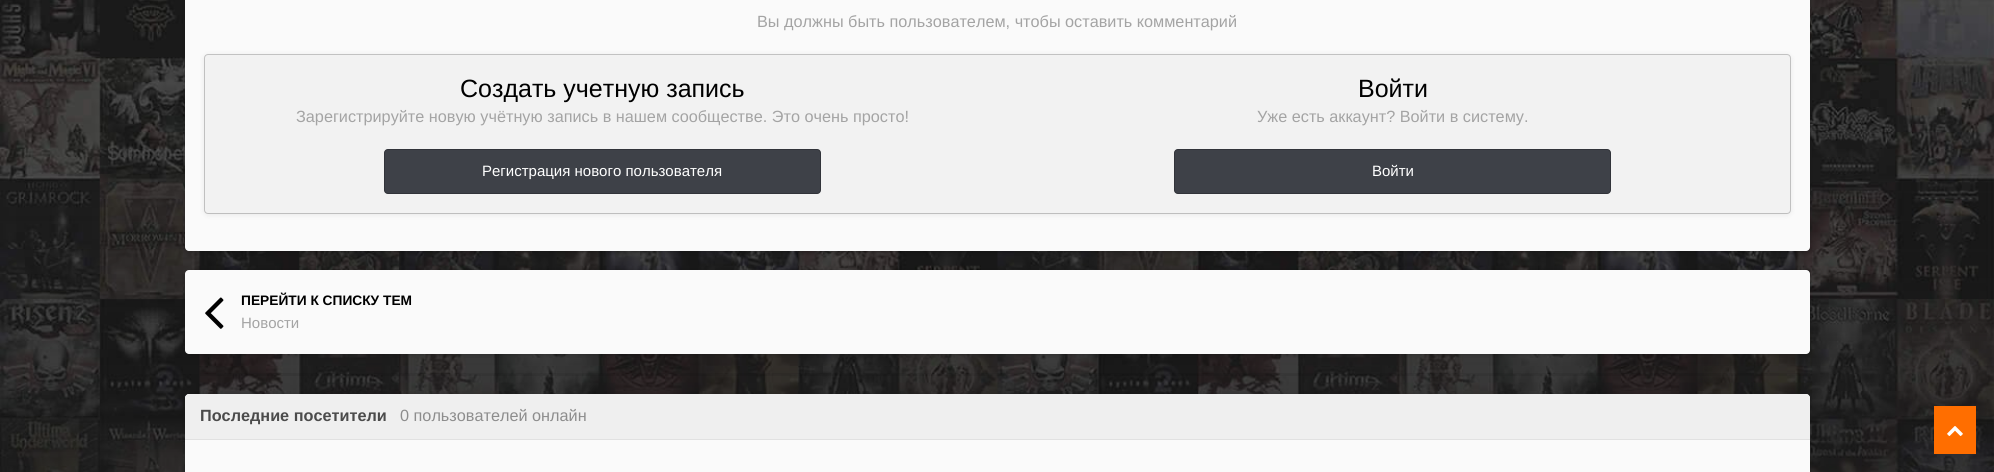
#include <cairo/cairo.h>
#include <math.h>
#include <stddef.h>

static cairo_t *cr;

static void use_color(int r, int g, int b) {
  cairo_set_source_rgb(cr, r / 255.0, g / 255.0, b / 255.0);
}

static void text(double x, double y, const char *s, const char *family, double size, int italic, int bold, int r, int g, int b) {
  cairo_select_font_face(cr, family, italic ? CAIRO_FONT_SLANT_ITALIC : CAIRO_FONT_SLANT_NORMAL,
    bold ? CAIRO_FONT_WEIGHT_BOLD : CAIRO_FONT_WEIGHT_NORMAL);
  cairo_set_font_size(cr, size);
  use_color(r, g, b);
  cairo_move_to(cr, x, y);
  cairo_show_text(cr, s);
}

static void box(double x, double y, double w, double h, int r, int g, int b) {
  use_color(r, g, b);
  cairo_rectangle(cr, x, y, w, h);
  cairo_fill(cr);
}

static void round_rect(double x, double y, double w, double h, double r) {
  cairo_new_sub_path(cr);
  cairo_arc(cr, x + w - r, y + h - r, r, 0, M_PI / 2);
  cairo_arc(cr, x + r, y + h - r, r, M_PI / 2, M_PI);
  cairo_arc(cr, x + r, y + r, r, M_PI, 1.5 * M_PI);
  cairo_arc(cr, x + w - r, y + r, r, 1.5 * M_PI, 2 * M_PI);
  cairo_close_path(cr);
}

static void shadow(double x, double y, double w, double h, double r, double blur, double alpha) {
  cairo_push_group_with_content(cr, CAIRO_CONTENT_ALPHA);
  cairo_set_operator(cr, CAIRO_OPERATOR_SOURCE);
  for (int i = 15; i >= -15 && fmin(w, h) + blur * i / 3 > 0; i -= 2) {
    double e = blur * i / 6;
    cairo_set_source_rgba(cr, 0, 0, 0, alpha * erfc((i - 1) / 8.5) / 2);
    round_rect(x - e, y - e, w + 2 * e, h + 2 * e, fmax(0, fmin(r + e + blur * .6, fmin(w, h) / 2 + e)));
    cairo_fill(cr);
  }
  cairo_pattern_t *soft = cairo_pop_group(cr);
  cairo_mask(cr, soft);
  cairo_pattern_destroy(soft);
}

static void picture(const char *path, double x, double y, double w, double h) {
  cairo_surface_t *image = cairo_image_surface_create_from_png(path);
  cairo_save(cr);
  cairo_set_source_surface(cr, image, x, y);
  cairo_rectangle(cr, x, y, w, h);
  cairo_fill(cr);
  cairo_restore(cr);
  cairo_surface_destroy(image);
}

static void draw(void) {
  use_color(255, 255, 255);
  cairo_paint(cr);
  picture("img_01.png", 0, 0, 1994, 472);
  use_color(0, 0, 0);
  shadow(185, -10, 1625, 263, 4, 2, 0.2);
  use_color(250, 250, 250);
  round_rect(185, -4, 1625, 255, 4);
  cairo_fill(cr);
  use_color(0, 0, 0);
  shadow(204, 55, 1587, 160, 4, 3, 0.07);
  use_color(242, 242, 242);
  round_rect(205, 55, 1585, 158, 2.5);
  cairo_fill(cr);
  round_rect(204.5, 54.5, 1586, 159, 3.5);
  cairo_set_source_rgba(cr, 0, 0, 0, 0.2);
  cairo_set_line_width(cr, 1);
  cairo_stroke(cr);
  use_color(62, 65, 72);
  round_rect(384, 149, 437, 45, 4);
  cairo_fill(cr);
  round_rect(384.5, 149.5, 436, 44, 3.5);
  cairo_set_source_rgba(cr, 0, 0, 0, 0.2);
  cairo_stroke(cr);
  use_color(62, 65, 72);
  round_rect(1174, 149, 437, 45, 4);
  cairo_fill(cr);
  round_rect(1174.5, 149.5, 436, 44, 3.5);
  cairo_set_source_rgba(cr, 0, 0, 0, 0.2);
  cairo_stroke(cr);
  use_color(0, 0, 0);
  shadow(185, 271, 1625, 84, 4, 2, 0.2);
  use_color(250, 250, 250);
  round_rect(185, 270, 1625, 84, 4);
  cairo_fill(cr);
  picture("img_02.png", 205, 297, 19, 32);
  cairo_set_source_rgba(cr, 0, 0, 0, 0.08);
  cairo_rectangle(cr, 200, 373, 1610, 3);
  cairo_fill(cr);
  use_color(0, 0, 0);
  shadow(185, 395, 1625, 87, 4, 2, 0.2);
  use_color(250, 250, 250);
  round_rect(185, 394, 1625, 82, 4);
  cairo_fill(cr);
  use_color(239, 239, 239);
  cairo_new_path(cr);
  cairo_move_to(cr, 189, 394);
  cairo_line_to(cr, 1806, 394);
  cairo_curve_to(cr, 1808, 394, 1810, 396, 1810, 398);
  cairo_line_to(cr, 1810, 440);
  cairo_line_to(cr, 185, 440);
  cairo_line_to(cr, 185, 398);
  cairo_curve_to(cr, 185, 396, 187, 394, 189, 394);
  cairo_close_path(cr);
  cairo_fill(cr);
  box(185, 439, 1625, 1, 225, 225, 225);
  box(1934, 406, 42, 48, 255, 110, 0);
  picture("img_03.png", 1947, 426, 16, 10);
  text(757, 27, "Вы должны быть пользователем, чтобы оставить комментарий", "Liberation Sans", 16.25, 0, 0, 164, 164, 164);
  text(460, 97, "Создать учетную запись", "Liberation Sans", 25, 0, 0, 0, 0, 0);
  text(296, 122, "Зарегистрируйте новую учётную запись в нашем сообществе. Это очень просто!", "Liberation Sans", 16.25, 0, 0, 164, 164, 164);
  text(482, 176, "Регистрация нового пользователя", "Liberation Sans", 15, 0, 0, 255, 255, 255);
  text(1358, 97, "Войти", "Liberation Sans", 25, 0, 0, 0, 0, 0);
  text(1257, 122, "Уже есть аккаунт? Войти в систему.", "Liberation Sans", 16.25, 0, 0, 164, 164, 164);
  text(1372, 176, "Войти", "Liberation Sans", 15, 0, 0, 255, 255, 255);
  text(241, 305, "ПЕРЕЙТИ К СПИСКУ ТЕМ", "Liberation Sans", 13.75, 0, 1, 0, 0, 0);
  text(241, 328, "Новости", "Liberation Sans", 15, 0, 0, 164, 164, 164);
  text(200, 421, "Последние посетители", "Liberation Sans", 16.25, 0, 1, 75, 75, 75);
  text(400, 421, "0 пользователей онлайн", "Liberation Sans", 16.25, 0, 0, 141, 141, 141);
}

int main(void) {
  cairo_surface_t *surface = cairo_image_surface_create(CAIRO_FORMAT_RGB24, 1994, 472);
  cr = cairo_create(surface);
  cairo_font_options_t *options = cairo_font_options_create();
  cairo_font_options_set_hint_metrics(options, CAIRO_HINT_METRICS_OFF);
  cairo_font_options_set_hint_style(options, CAIRO_HINT_STYLE_NONE);
  cairo_set_font_options(cr, options);
  cairo_set_miter_limit(cr, 4);
  draw();
  cairo_surface_write_to_png(surface, "out.png");
  cairo_font_options_destroy(options);
  cairo_destroy(cr);
  cairo_surface_destroy(surface);
  return 0;
}
